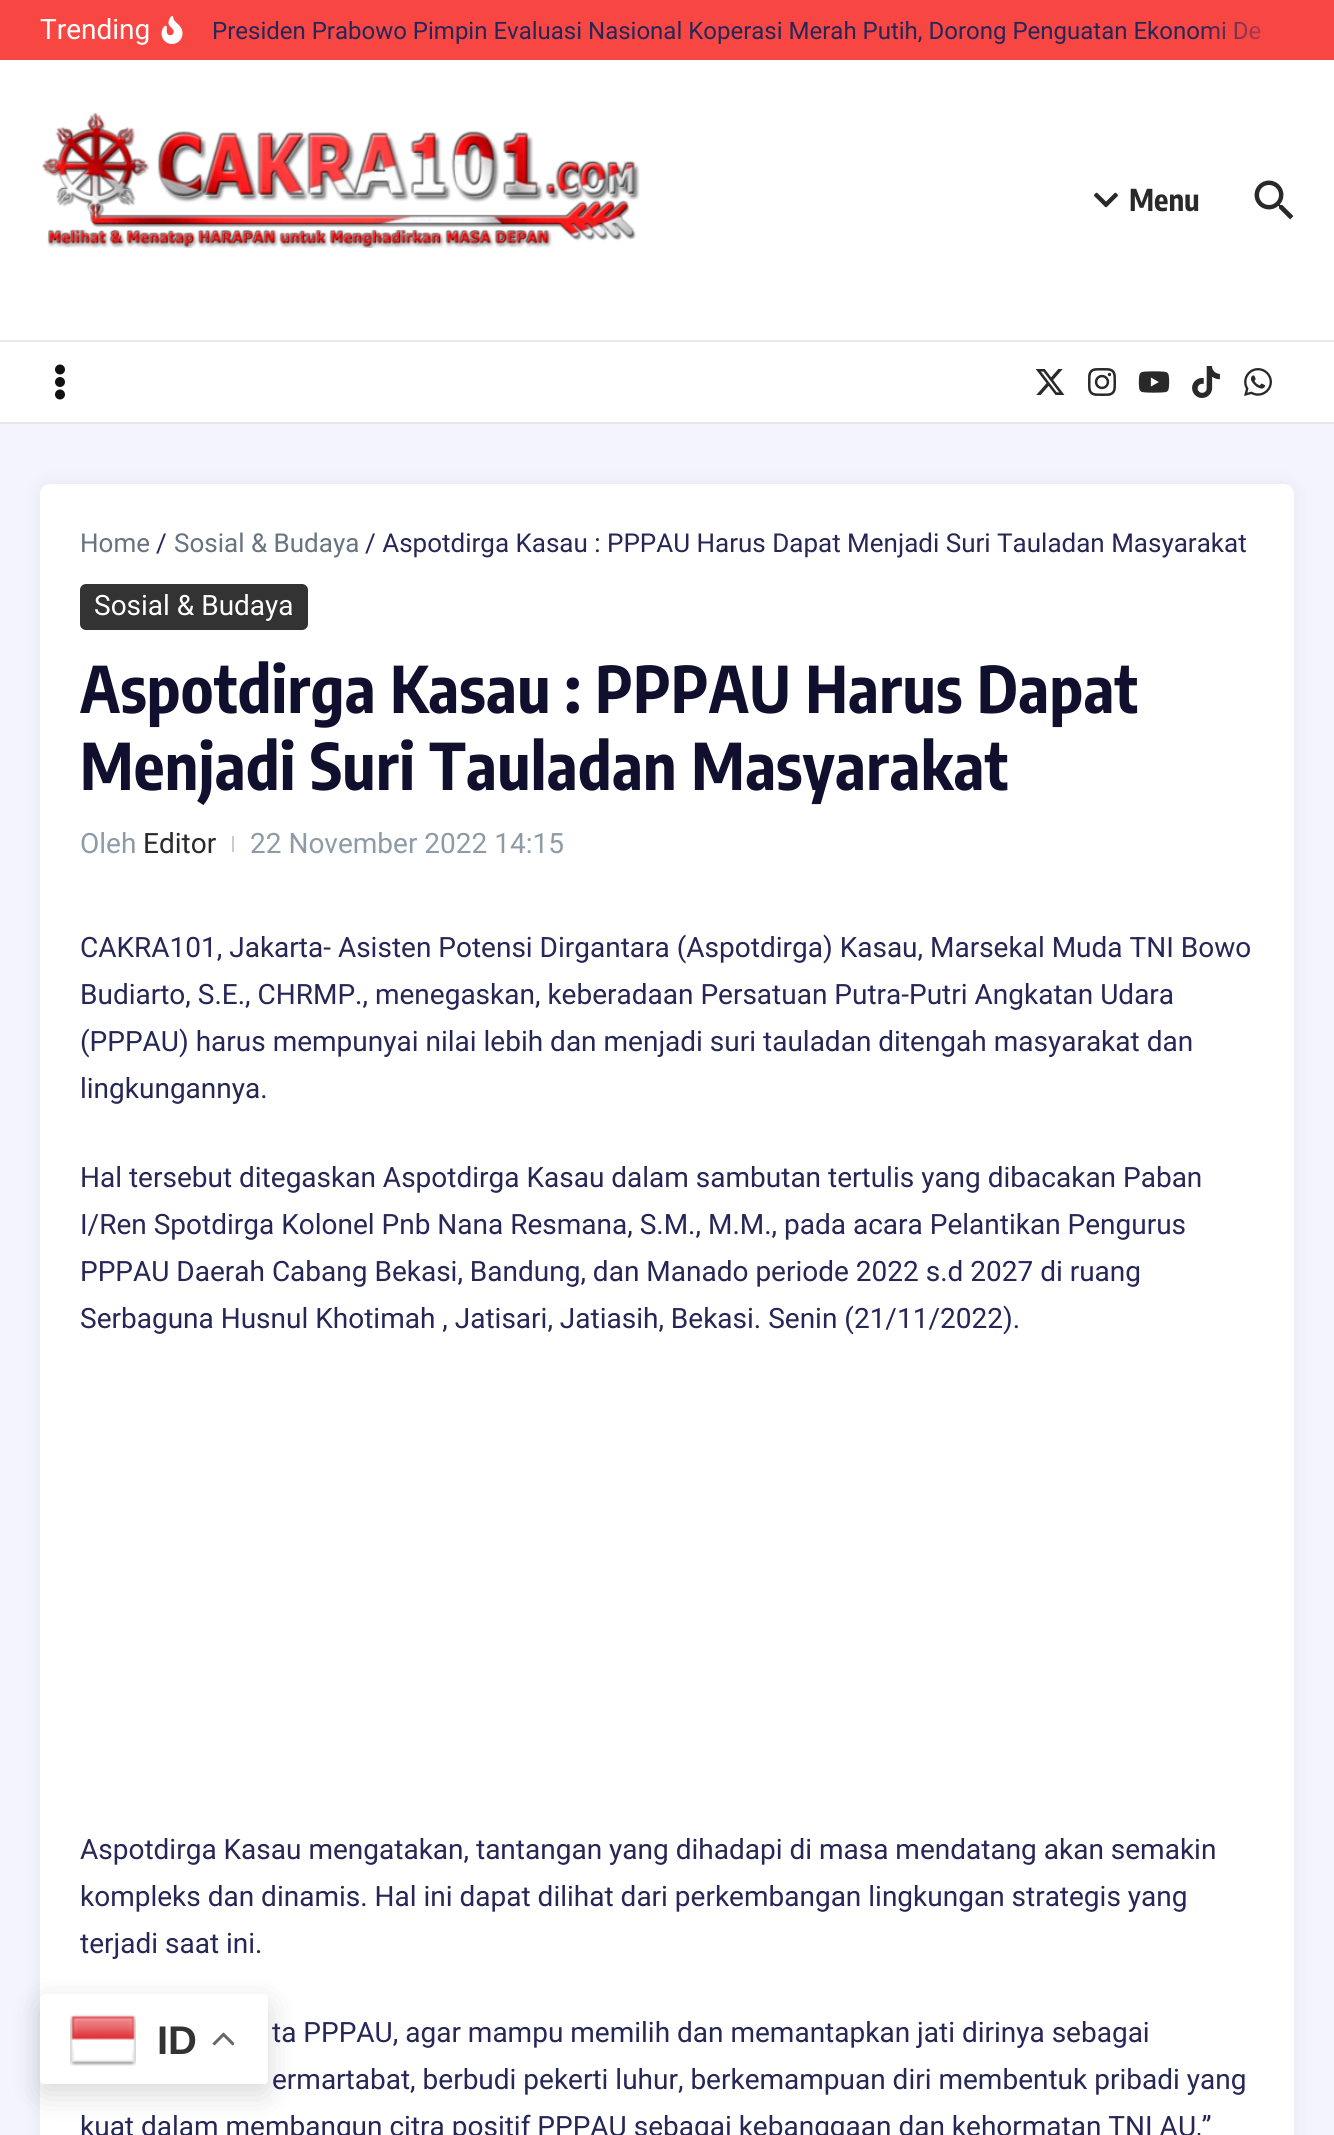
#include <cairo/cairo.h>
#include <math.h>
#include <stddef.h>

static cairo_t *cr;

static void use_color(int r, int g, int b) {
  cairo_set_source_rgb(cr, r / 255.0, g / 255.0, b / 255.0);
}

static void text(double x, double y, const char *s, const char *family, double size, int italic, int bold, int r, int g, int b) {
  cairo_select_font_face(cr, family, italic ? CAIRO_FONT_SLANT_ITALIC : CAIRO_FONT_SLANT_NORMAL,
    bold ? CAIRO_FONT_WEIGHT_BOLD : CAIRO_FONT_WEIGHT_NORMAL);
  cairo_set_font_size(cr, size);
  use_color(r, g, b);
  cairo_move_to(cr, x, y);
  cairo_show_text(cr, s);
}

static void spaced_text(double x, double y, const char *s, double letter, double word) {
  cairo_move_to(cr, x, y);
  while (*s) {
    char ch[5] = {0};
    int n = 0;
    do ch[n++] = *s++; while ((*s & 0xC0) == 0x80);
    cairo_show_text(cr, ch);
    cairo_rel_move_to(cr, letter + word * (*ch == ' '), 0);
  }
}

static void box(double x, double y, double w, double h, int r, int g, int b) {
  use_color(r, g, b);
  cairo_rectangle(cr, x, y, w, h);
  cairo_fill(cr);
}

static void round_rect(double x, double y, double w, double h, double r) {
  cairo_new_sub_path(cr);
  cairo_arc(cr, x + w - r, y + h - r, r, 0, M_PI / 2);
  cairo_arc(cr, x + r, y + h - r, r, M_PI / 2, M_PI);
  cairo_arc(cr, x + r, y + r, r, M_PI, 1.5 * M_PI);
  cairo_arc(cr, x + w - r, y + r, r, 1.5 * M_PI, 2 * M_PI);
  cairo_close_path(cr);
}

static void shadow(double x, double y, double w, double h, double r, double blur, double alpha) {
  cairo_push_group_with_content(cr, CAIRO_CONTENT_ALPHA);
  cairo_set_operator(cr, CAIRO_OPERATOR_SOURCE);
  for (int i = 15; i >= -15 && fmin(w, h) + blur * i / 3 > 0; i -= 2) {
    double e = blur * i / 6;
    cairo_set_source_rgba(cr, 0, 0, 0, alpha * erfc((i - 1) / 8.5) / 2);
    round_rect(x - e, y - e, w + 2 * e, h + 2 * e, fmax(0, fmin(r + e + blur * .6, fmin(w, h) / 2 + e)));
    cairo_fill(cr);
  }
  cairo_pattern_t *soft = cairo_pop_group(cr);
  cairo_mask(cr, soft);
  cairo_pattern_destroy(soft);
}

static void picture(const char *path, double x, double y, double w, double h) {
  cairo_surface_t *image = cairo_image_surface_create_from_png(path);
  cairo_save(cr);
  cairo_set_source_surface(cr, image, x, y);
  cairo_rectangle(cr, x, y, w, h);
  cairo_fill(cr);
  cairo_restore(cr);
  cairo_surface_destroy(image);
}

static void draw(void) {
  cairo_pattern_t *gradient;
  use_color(244, 244, 255);
  cairo_paint(cr);
  box(0, 0, 1334, 60, 248, 70, 67);
  picture("img_01.png", 161, 16, 22, 28);
  box(0, 60, 1334, 280, 255, 255, 255);
  box(0, 340, 1334, 2, 232, 232, 232);
  picture("img_02.png", 42, 112, 598, 136);
  picture("img_03.png", 1094, 192, 24, 16);
  picture("img_04.png", 1254, 180, 40, 40);
  box(0, 342, 1334, 80, 255, 255, 255);
  box(0, 422, 1334, 2, 232, 232, 232);
  picture("img_05.png", 55, 364, 10, 36);
  picture("img_06.png", 1035, 369, 30, 26);
  picture("img_07.png", 1088, 368, 28, 28);
  picture("img_08.png", 1138, 371, 32, 22);
  picture("img_09.png", 1192, 366, 28, 32);
  picture("img_10.png", 1244, 368, 28, 28);
  use_color(0, 0, 0);
  shadow(38, 482, 1258, 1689, 12, 8, 0.05);
  use_color(255, 255, 255);
  round_rect(40, 484, 1254, 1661, 10);
  cairo_fill(cr);
  use_color(51, 51, 51);
  round_rect(80, 584, 228, 46, 6);
  cairo_fill(cr);
  box(232, 836, 2, 16, 199, 205, 211);
  use_color(0, 0, 0);
  shadow(40, 2004, 228, 90, 4, 15, 0.15);
  use_color(255, 255, 255);
  round_rect(40, 1994, 228, 90, 4);
  cairo_fill(cr);
  picture("img_11.png", 70, 2014, 66, 52);
  picture("img_12.png", 212, 2032, 22, 14);
  text(40, 39, "Trending", "Roboto", 28, 0, 0, 255, 255, 255);
  text(212, 39, "Presiden Prabowo Pimpin Evaluasi Nasional Koperasi Merah Putih, Dorong Penguatan Ekonomi De", "Roboto", 24, 0, 0, 38, 38, 87);
  gradient = cairo_pattern_create_linear(1196, 30, 1296, 30);
  cairo_pattern_add_color_stop_rgba(gradient, 0, 0.973, 0.275, 0.263, 0);
  cairo_pattern_add_color_stop_rgba(gradient, 1, 0.973, 0.275, 0.263, 1);
  cairo_set_source(cr, gradient);
  cairo_pattern_destroy(gradient);
  cairo_rectangle(cr, 1198, 21, 63, 19);
  cairo_fill(cr);
  text(1129, 211, "Menu", "Encode Sans Condensed", 30, 0, 1, 41, 41, 41);
  text(80, 552, "Home", "Roboto", 26, 0, 0, 103, 115, 126);
  text(156, 552, "/", "Roboto", 26, 0, 0, 38, 38, 87);
  text(174, 552, "Sosial & Budaya", "Roboto", 26, 0, 0, 103, 115, 126);
  text(365, 552, "/ Aspotdirga Kasau : PPPAU Harus Dapat Menjadi Suri Tauladan Masyarakat", "Roboto", 26, 0, 0, 38, 38, 87);
  text(94, 615, "Sosial & Budaya", "Roboto", 28, 0, 0, 255, 255, 255);
  cairo_select_font_face(cr, "Encode Sans Condensed", CAIRO_FONT_SLANT_NORMAL, CAIRO_FONT_WEIGHT_BOLD);
  cairo_set_font_size(cr, 64);
  use_color(16, 16, 46);
  spaced_text(80, 713, "Aspotdirga Kasau : PPPAU Harus Dapat", 0.4, 0);
  spaced_text(80, 790, "Menjadi Suri Tauladan Masyarakat", 0.4, 0);
  text(80, 853, "Oleh", "Roboto", 28, 0, 0, 142, 155, 167);
  text(143, 853, "Editor", "Roboto", 28, 0, 0, 41, 41, 41);
  text(250, 853, "22 November 2022 14:15", "Roboto", 28, 0, 0, 142, 155, 167);
  text(80, 957, "CAKRA101, Jakarta- Asisten Potensi Dirgantara (Aspotdirga) Kasau, Marsekal Muda TNI Bowo", "Roboto", 28, 0, 0, 38, 38, 87);
  text(80, 1004, "Budiarto, S.E., CHRMP., menegaskan, keberadaan Persatuan Putra-Putri Angkatan Udara", "Roboto", 28, 0, 0, 38, 38, 87);
  text(80, 1051, "(PPPAU) harus mempunyai nilai lebih dan menjadi suri tauladan ditengah masyarakat dan", "Roboto", 28, 0, 0, 38, 38, 87);
  text(80, 1098, "lingkungannya.", "Roboto", 28, 0, 0, 38, 38, 87);
  text(80, 1187, "Hal tersebut ditegaskan Aspotdirga Kasau dalam sambutan tertulis yang dibacakan Paban", "Roboto", 28, 0, 0, 38, 38, 87);
  text(80, 1234, "I/Ren Spotdirga Kolonel Pnb Nana Resmana, S.M., M.M., pada acara Pelantikan Pengurus", "Roboto", 28, 0, 0, 38, 38, 87);
  text(80, 1281, "PPPAU Daerah Cabang Bekasi, Bandung, dan Manado periode 2022 s.d 2027 di ruang", "Roboto", 28, 0, 0, 38, 38, 87);
  text(80, 1328, "Serbaguna Husnul Khotimah , Jatisari, Jatiasih, Bekasi. Senin (21/11/2022).", "Roboto", 28, 0, 0, 38, 38, 87);
  text(80, 1859, "Aspotdirga Kasau mengatakan, tantangan yang dihadapi di masa mendatang akan semakin", "Roboto", 28, 0, 0, 38, 38, 87);
  text(80, 1906, "kompleks dan dinamis. Hal ini dapat dilihat dari perkembangan lingkungan strategis yang", "Roboto", 28, 0, 0, 38, 38, 87);
  text(80, 1953, "terjadi saat ini.", "Roboto", 28, 0, 0, 38, 38, 87);
  text(272, 2042, "ta PPPAU, agar mampu memilih dan memantapkan jati dirinya sebagai", "Roboto", 28, 0, 0, 38, 38, 87);
  text(272, 2089, "ermartabat, berbudi pekerti luhur, berkemampuan diri membentuk pribadi yang", "Roboto", 28, 0, 0, 38, 38, 87);
  text(80, 2136, "kuat dalam membangun citra positif PPPAU sebagai kebanggaan dan kehormatan TNI AU,”", "Roboto", 28, 0, 0, 38, 38, 87);
  text(157, 2054, "ID", "Liberation Sans", 40, 0, 1, 51, 51, 51);
}

int main(void) {
  cairo_surface_t *surface = cairo_image_surface_create(CAIRO_FORMAT_RGB24, 1334, 2135);
  cr = cairo_create(surface);
  cairo_font_options_t *options = cairo_font_options_create();
  cairo_font_options_set_hint_metrics(options, CAIRO_HINT_METRICS_OFF);
  cairo_font_options_set_hint_style(options, CAIRO_HINT_STYLE_NONE);
  cairo_set_font_options(cr, options);
  cairo_set_miter_limit(cr, 4);
  draw();
  cairo_surface_write_to_png(surface, "out.png");
  cairo_font_options_destroy(options);
  cairo_destroy(cr);
  cairo_surface_destroy(surface);
  return 0;
}
